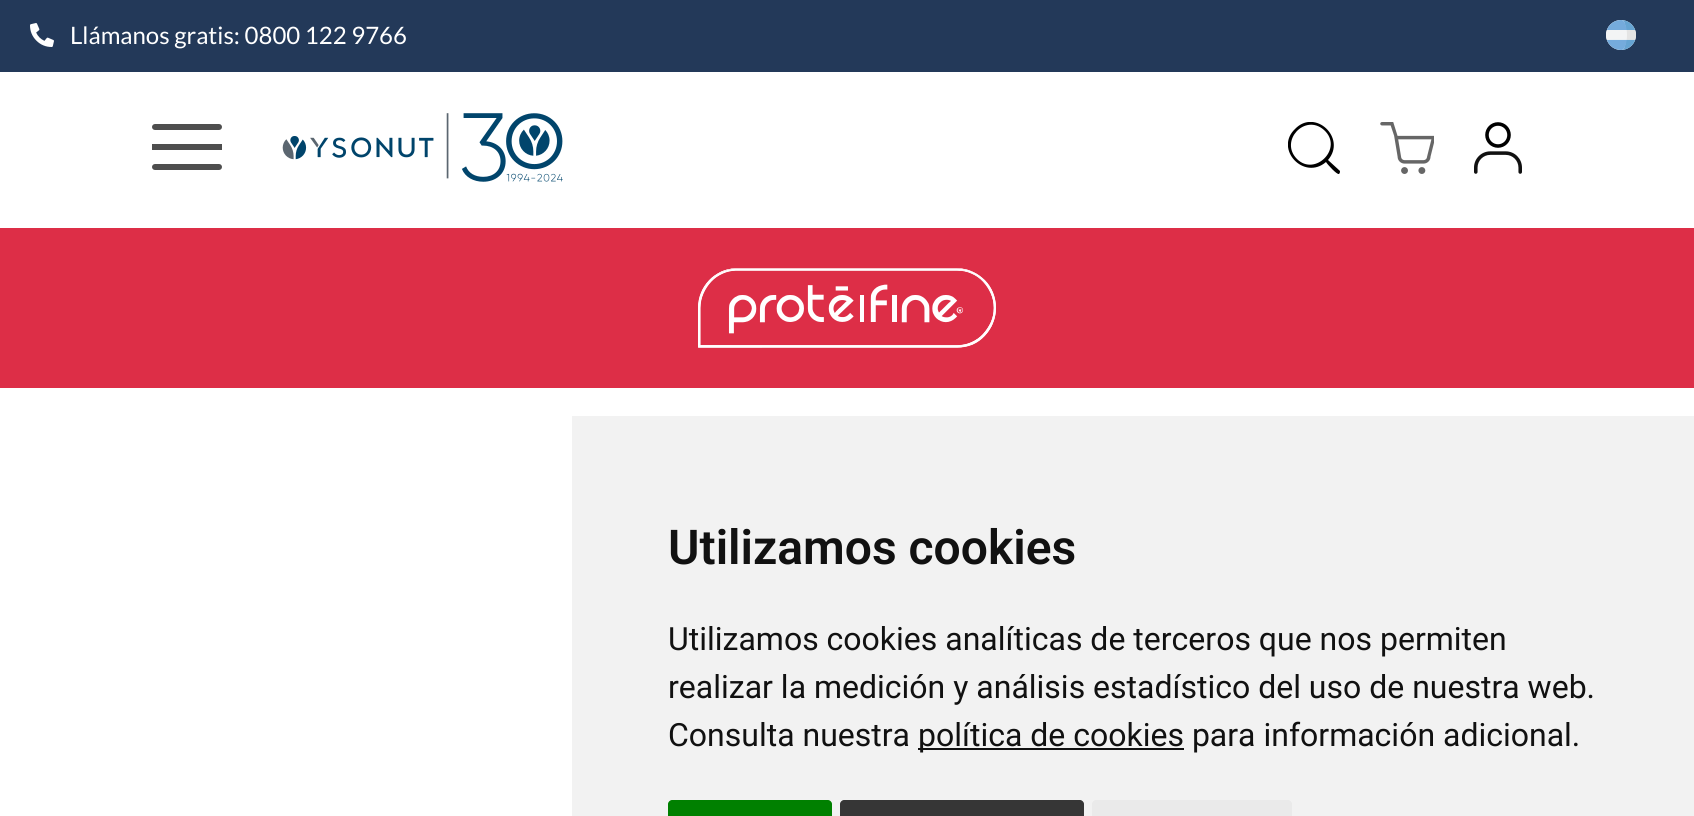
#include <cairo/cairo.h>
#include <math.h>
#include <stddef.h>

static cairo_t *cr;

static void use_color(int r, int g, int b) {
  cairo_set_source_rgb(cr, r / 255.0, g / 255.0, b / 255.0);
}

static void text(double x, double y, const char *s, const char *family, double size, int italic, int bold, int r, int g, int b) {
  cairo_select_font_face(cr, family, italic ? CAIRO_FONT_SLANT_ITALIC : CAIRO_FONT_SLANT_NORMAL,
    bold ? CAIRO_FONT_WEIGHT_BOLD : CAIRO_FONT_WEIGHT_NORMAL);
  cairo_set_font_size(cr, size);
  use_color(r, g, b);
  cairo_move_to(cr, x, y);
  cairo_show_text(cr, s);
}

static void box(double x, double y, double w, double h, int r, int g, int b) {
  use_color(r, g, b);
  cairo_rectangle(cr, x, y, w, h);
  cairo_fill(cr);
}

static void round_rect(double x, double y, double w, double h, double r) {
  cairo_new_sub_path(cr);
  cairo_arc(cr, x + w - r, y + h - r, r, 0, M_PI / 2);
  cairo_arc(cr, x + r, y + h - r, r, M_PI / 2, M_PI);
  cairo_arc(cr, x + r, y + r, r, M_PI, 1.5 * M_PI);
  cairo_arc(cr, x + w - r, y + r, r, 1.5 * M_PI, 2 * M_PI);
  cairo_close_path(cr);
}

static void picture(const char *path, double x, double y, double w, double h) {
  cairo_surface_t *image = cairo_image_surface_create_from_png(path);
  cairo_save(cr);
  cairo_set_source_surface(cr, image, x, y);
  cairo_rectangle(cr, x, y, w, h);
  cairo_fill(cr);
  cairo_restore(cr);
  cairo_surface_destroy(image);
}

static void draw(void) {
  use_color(255, 255, 255);
  cairo_paint(cr);
  box(0, 0, 1694, 72, 35, 57, 89);
  picture("img_01.png", 30, 23, 24, 24);
  picture("img_02.png", 1606, 20, 30, 30);
  box(152, 144, 70, 6, 78, 78, 78);
  round_rect(152, 124, 70, 6, 3);
  cairo_fill(cr);
  round_rect(152, 164, 70, 6, 3);
  cairo_fill(cr);
  picture("img_03.png", 282, 113, 281, 69);
  cairo_save(cr);
  cairo_rectangle(cr, 1288, 122, 52, 52);
  cairo_clip(cr);
  use_color(0, 0, 0);
  cairo_new_path(cr);
  cairo_move_to(cr, 1340, 171);
  cairo_line_to(cr, 1328, 160);
  cairo_curve_to(cr, 1347, 138, 1315, 108, 1295, 129);
  cairo_curve_to(cr, 1274, 149, 1304, 181, 1326, 162);
  cairo_curve_to(cr, 1327, 164, 1337, 175, 1339, 174);
  cairo_curve_to(cr, 1340, 173, 1340, 172, 1340, 171);
  cairo_close_path(cr);
  cairo_move_to(cr, 1297, 159);
  cairo_curve_to(cr, 1279, 141, 1305, 113, 1324, 130);
  cairo_curve_to(cr, 1344, 148, 1315, 177, 1297, 159);
  cairo_close_path(cr);
  cairo_fill(cr);
  cairo_restore(cr);
  picture("img_04.png", 1380, 122, 54, 52);
  picture("img_05.png", 1474, 122, 48, 52);
  box(0, 228, 1694, 160, 221, 46, 71);
  picture("img_06.png", 698, 268, 298, 80);
  box(572, 416, 1122, 400, 242, 242, 242);
  box(918, 748, 266, 2, 17, 17, 17);
  use_color(0, 128, 0);
  cairo_new_path(cr);
  cairo_move_to(cr, 672, 800);
  cairo_line_to(cr, 828, 800);
  cairo_curve_to(cr, 830, 800, 832, 802, 832, 804);
  cairo_line_to(cr, 832, 816);
  cairo_line_to(cr, 668, 816);
  cairo_line_to(cr, 668, 804);
  cairo_curve_to(cr, 668, 802, 670, 800, 672, 800);
  cairo_close_path(cr);
  cairo_fill(cr);
  use_color(54, 54, 54);
  cairo_new_path(cr);
  cairo_move_to(cr, 844, 800);
  cairo_line_to(cr, 1080, 800);
  cairo_curve_to(cr, 1082, 800, 1084, 802, 1084, 804);
  cairo_line_to(cr, 1084, 816);
  cairo_line_to(cr, 840, 816);
  cairo_line_to(cr, 840, 804);
  cairo_curve_to(cr, 840, 802, 842, 800, 844, 800);
  cairo_close_path(cr);
  cairo_fill(cr);
  use_color(234, 234, 234);
  cairo_new_path(cr);
  cairo_move_to(cr, 1096, 800);
  cairo_line_to(cr, 1288, 800);
  cairo_curve_to(cr, 1290, 800, 1292, 802, 1292, 804);
  cairo_line_to(cr, 1292, 816);
  cairo_line_to(cr, 1092, 816);
  cairo_line_to(cr, 1092, 804);
  cairo_curve_to(cr, 1092, 802, 1094, 800, 1096, 800);
  cairo_close_path(cr);
  cairo_fill(cr);
  text(70, 44, "Llámanos gratis: 0800 122 9766", "Lato", 24, 0, 0, 255, 255, 255);
  text(668, 564, "Utilizamos cookies", "Roboto SemiBold", 48, 0, 0, 17, 17, 17);
  text(668, 650, "Utilizamos cookies analíticas de terceros que nos permiten", "Roboto", 32, 0, 0, 17, 17, 17);
  text(668, 698, "realizar la medición y análisis estadístico del uso de nuestra web.", "Roboto", 32, 0, 0, 17, 17, 17);
  text(668, 746, "Consulta nuestra", "Roboto", 32, 0, 0, 17, 17, 17);
  text(918, 746, "política de cookies para información adicional.", "Roboto", 32, 0, 0, 17, 17, 17);
}

int main(void) {
  cairo_surface_t *surface = cairo_image_surface_create(CAIRO_FORMAT_RGB24, 1694, 816);
  cr = cairo_create(surface);
  cairo_font_options_t *options = cairo_font_options_create();
  cairo_font_options_set_hint_metrics(options, CAIRO_HINT_METRICS_OFF);
  cairo_font_options_set_hint_style(options, CAIRO_HINT_STYLE_NONE);
  cairo_set_font_options(cr, options);
  cairo_set_miter_limit(cr, 4);
  draw();
  cairo_surface_write_to_png(surface, "out.png");
  cairo_font_options_destroy(options);
  cairo_destroy(cr);
  cairo_surface_destroy(surface);
  return 0;
}
